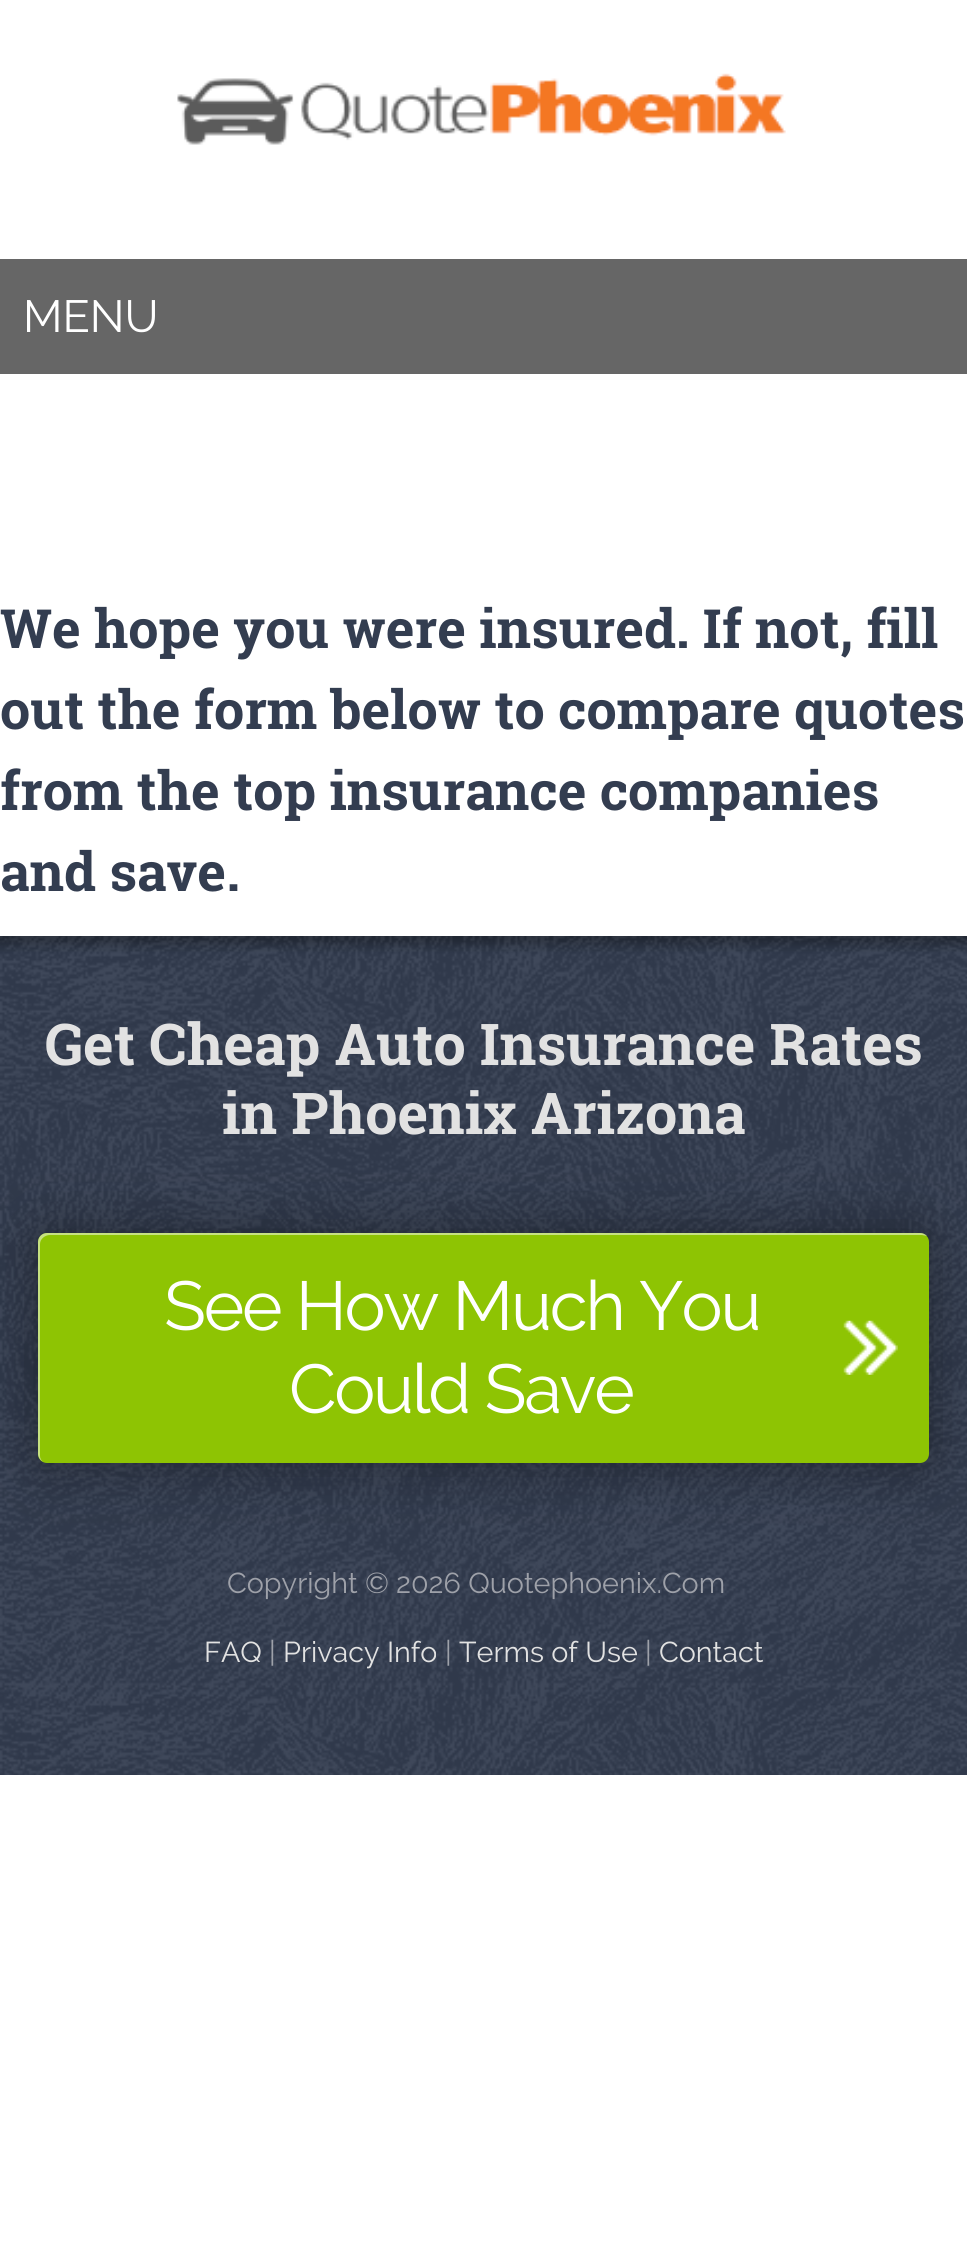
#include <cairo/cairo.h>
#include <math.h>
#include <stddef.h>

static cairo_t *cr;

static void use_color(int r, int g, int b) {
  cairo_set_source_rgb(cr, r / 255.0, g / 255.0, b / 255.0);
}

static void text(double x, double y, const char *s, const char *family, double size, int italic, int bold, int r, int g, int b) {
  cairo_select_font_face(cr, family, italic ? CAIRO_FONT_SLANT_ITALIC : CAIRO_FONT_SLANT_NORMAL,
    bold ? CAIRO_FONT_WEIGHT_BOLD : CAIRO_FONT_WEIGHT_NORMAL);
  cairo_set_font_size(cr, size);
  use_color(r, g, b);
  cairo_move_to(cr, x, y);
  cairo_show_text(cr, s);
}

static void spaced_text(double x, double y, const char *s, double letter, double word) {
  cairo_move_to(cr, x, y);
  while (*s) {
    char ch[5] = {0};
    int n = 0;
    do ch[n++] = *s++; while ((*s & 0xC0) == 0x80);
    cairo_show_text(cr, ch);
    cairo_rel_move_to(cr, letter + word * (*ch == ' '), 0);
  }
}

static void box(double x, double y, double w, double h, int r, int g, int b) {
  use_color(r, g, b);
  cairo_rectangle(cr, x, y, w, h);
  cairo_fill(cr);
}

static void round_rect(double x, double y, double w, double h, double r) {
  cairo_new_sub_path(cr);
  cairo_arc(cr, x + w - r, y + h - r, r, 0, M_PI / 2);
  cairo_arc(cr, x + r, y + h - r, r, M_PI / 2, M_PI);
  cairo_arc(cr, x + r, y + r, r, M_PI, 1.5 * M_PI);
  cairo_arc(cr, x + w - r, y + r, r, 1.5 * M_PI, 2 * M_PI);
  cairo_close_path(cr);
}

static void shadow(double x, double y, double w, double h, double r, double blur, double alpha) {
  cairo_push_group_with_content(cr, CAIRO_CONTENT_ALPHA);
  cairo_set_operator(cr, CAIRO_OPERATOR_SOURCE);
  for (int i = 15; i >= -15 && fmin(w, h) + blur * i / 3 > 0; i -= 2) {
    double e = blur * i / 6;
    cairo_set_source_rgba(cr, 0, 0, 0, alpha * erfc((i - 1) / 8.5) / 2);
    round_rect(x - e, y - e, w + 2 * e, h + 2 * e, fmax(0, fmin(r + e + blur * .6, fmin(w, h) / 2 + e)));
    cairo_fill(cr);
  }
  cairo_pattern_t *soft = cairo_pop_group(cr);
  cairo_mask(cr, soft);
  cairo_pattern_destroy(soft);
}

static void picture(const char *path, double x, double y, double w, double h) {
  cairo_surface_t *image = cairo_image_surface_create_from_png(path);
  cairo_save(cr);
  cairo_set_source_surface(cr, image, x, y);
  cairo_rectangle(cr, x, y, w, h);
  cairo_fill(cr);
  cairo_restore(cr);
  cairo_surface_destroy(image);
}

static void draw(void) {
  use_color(255, 255, 255);
  cairo_paint(cr);
  picture("img_01.png", 177, 73, 609, 72);
  box(0, 259, 967, 115, 102, 102, 102);
  box(0, 936, 967, 839, 51, 61, 80);
  picture("img_02.png", 0, 936, 967, 839);
  use_color(0, 0, 0);
  shadow(38, 1233, 891, 230, 9, 28, 0.4);
  use_color(142, 196, 3);
  round_rect(38, 1233, 891, 230, 9);
  cairo_fill(cr);
  picture("img_03.png", 843, 1320, 55, 55);
  cairo_set_source_rgba(cr, 1, 1, 1, 0.5);
  cairo_new_path(cr);
  cairo_move_to(cr, 50, 1235);
  cairo_line_to(cr, 922, 1235);
  cairo_line_to(cr, 927, 1236);
  cairo_curve_to(cr, 925, 1234, 923, 1233, 920, 1233);
  cairo_line_to(cr, 47, 1233);
  cairo_curve_to(cr, 42, 1233, 38, 1237, 38, 1242);
  cairo_line_to(cr, 38, 1454);
  cairo_curve_to(cr, 38, 1457, 40, 1460, 43, 1462);
  cairo_curve_to(cr, 41, 1460, 40, 1458, 40, 1456);
  cairo_line_to(cr, 40, 1244);
  cairo_curve_to(cr, 40, 1239, 45, 1235, 50, 1235);
  cairo_close_path(cr);
  cairo_fill(cr);
  text(23, 332, "MENU", "Raleway", 45, 0, 0, 255, 255, 255);
  text(0, 648, "We hope you were insured. If not, fill", "Roboto Slab", 54, 0, 1, 51, 61, 80);
  text(0, 729, "out the form below to compare quotes", "Roboto Slab", 54, 0, 1, 51, 61, 80);
  text(0, 810, "from the top insurance companies", "Roboto Slab", 54, 0, 1, 51, 61, 80);
  text(0, 891, "and save.", "Roboto Slab", 54, 0, 1, 51, 61, 80);
  text(45, 1065, "Get Cheap Auto Insurance Rates", "Roboto Slab", 57.6, 0, 1, 226, 226, 226);
  text(222, 1134, "in Phoenix Arizona", "Roboto Slab", 57.6, 0, 1, 226, 226, 226);
  cairo_select_font_face(cr, "Raleway", CAIRO_FONT_SLANT_NORMAL, CAIRO_FONT_WEIGHT_NORMAL);
  cairo_set_font_size(cr, 69.1);
  use_color(255, 255, 255);
  spaced_text(164, 1330, "See How Much You", -2.25, 0);
  spaced_text(289, 1413, "Could Save", -2.25, 0);
  text(227, 1593, "Copyright ©", "Raleway", 28.75, 0, 0, 158, 161, 169);
  text(396, 1593, "2026 Quotephoenix.Com", "Raleway", 28.75, 0, 0, 158, 161, 169);
  text(204, 1662, "FAQ", "Raleway", 28.75, 0, 0, 226, 226, 226);
  text(269, 1662, "|", "Raleway", 28.75, 0, 0, 158, 161, 169);
  text(283, 1662, "Privacy Info", "Raleway", 28.75, 0, 0, 226, 226, 226);
  text(445, 1662, "|", "Raleway", 28.75, 0, 0, 158, 161, 169);
  text(459, 1662, "Terms of Use", "Raleway", 28.75, 0, 0, 226, 226, 226);
  text(645, 1662, "|", "Raleway", 28.75, 0, 0, 158, 161, 169);
  text(659, 1662, "Contact", "Raleway", 28.75, 0, 0, 226, 226, 226);
}

int main(void) {
  cairo_surface_t *surface = cairo_image_surface_create(CAIRO_FORMAT_RGB24, 967, 2256);
  cr = cairo_create(surface);
  cairo_font_options_t *options = cairo_font_options_create();
  cairo_font_options_set_hint_metrics(options, CAIRO_HINT_METRICS_OFF);
  cairo_font_options_set_hint_style(options, CAIRO_HINT_STYLE_NONE);
  cairo_set_font_options(cr, options);
  cairo_set_miter_limit(cr, 4);
  draw();
  cairo_surface_write_to_png(surface, "out.png");
  cairo_font_options_destroy(options);
  cairo_destroy(cr);
  cairo_surface_destroy(surface);
  return 0;
}
